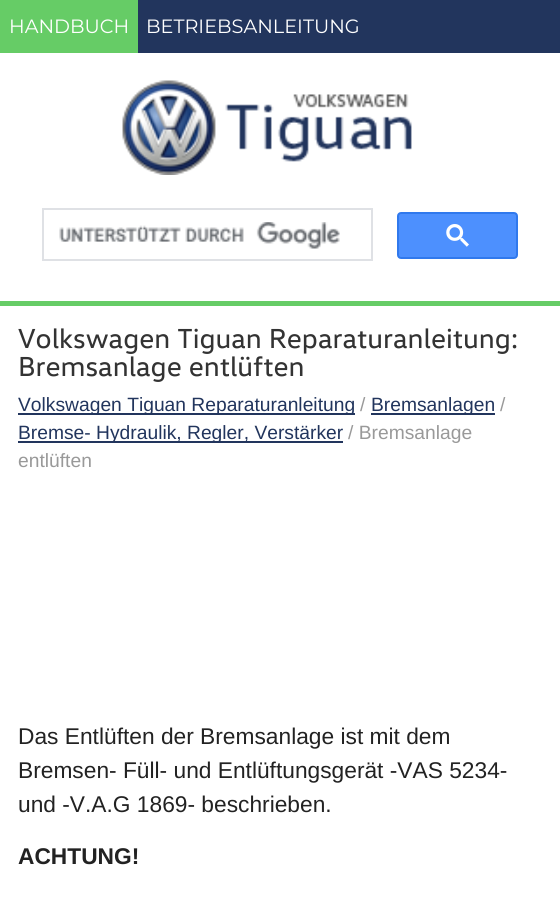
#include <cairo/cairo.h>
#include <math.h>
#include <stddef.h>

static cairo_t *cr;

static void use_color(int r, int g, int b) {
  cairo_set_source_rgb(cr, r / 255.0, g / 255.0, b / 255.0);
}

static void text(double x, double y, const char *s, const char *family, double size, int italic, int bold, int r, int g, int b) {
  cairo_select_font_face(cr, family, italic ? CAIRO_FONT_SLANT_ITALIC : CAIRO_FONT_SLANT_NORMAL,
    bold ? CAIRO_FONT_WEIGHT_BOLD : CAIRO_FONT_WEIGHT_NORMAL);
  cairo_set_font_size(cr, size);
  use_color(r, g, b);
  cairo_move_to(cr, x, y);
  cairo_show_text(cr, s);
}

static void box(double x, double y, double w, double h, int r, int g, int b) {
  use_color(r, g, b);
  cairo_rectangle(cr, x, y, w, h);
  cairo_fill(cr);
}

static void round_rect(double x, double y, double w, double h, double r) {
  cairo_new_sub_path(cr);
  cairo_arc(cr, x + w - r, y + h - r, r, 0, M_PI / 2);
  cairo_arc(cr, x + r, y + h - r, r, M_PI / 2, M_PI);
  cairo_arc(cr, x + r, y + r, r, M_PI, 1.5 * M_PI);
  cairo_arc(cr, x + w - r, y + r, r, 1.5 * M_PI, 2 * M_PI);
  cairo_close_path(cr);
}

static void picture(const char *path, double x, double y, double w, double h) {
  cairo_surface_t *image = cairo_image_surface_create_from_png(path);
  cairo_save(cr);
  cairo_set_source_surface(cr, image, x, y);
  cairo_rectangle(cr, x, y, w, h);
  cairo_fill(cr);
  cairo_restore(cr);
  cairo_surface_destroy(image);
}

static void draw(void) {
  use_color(255, 255, 255);
  cairo_paint(cr);
  box(138, 0, 422, 53, 34, 53, 93);
  box(0, 0, 138, 53, 102, 204, 102);
  box(0, 301, 560, 5, 102, 204, 102);
  picture("img_01.png", 122, 80, 290, 95);
  cairo_rectangle(cr, 43, 209, 329, 51);
  use_color(223, 225, 229);
  cairo_stroke(cr);
  picture("img_02.png", 59, 222, 281, 27);
  use_color(77, 144, 254);
  round_rect(398, 213, 119, 45, 3);
  cairo_fill_preserve(cr);
  use_color(48, 121, 237);
  cairo_stroke(cr);
  picture("img_03.png", 446, 224, 23, 23);
  box(18, 413, 337, 2, 34, 53, 93);
  box(371, 413, 124, 2, 34, 53, 93);
  box(18, 441, 325, 2, 34, 53, 93);
  text(9, 33, "HANDBUCH", "Montserrat", 19.25, 0, 0, 255, 255, 255);
  text(146, 33, "BETRIEBSANLEITUNG", "Montserrat", 19.25, 0, 0, 255, 255, 255);
  text(18, 348, "Volkswagen Tiguan Reparaturanleitung:", "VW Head", 28, 0, 0, 51, 51, 51);
  text(18, 376, "Bremsanlage entlüften", "VW Head", 28, 0, 0, 51, 51, 51);
  text(18, 411, "Volkswagen Tiguan Reparaturanleitung", "Liberation Sans", 19.25, 0, 0, 34, 53, 93);
  text(360, 411, "/", "Liberation Sans", 19.25, 0, 0, 153, 153, 153);
  text(371, 411, "Bremsanlagen", "Liberation Sans", 19.25, 0, 0, 34, 53, 93);
  text(500, 411, "/", "Liberation Sans", 19.25, 0, 0, 153, 153, 153);
  text(18, 439, "Bremse- Hydraulik, Regler, Verstärker", "Liberation Sans", 19.25, 0, 0, 34, 53, 93);
  text(348, 439, "/ Bremsanlage", "Liberation Sans", 19.25, 0, 0, 153, 153, 153);
  text(18, 467, "entlüften", "Liberation Sans", 19.25, 0, 0, 153, 153, 153);
  text(18, 744, "Das Entlüften der Bremsanlage ist mit dem", "Liberation Sans", 22.75, 0, 0, 34, 34, 34);
  text(18, 778, "Bremsen- Füll- und Entlüftungsgerät -VAS 5234-", "Liberation Sans", 22.75, 0, 0, 34, 34, 34);
  text(18, 812, "und -V.A.G 1869- beschrieben.", "Liberation Sans", 22.75, 0, 0, 34, 34, 34);
  text(18, 864, "ACHTUNG!", "Liberation Sans", 22.75, 0, 1, 34, 34, 34);
}

int main(void) {
  cairo_surface_t *surface = cairo_image_surface_create(CAIRO_FORMAT_RGB24, 560, 897);
  cr = cairo_create(surface);
  cairo_font_options_t *options = cairo_font_options_create();
  cairo_font_options_set_hint_metrics(options, CAIRO_HINT_METRICS_OFF);
  cairo_font_options_set_hint_style(options, CAIRO_HINT_STYLE_NONE);
  cairo_set_font_options(cr, options);
  cairo_set_miter_limit(cr, 4);
  draw();
  cairo_surface_write_to_png(surface, "out.png");
  cairo_font_options_destroy(options);
  cairo_destroy(cr);
  cairo_surface_destroy(surface);
  return 0;
}
